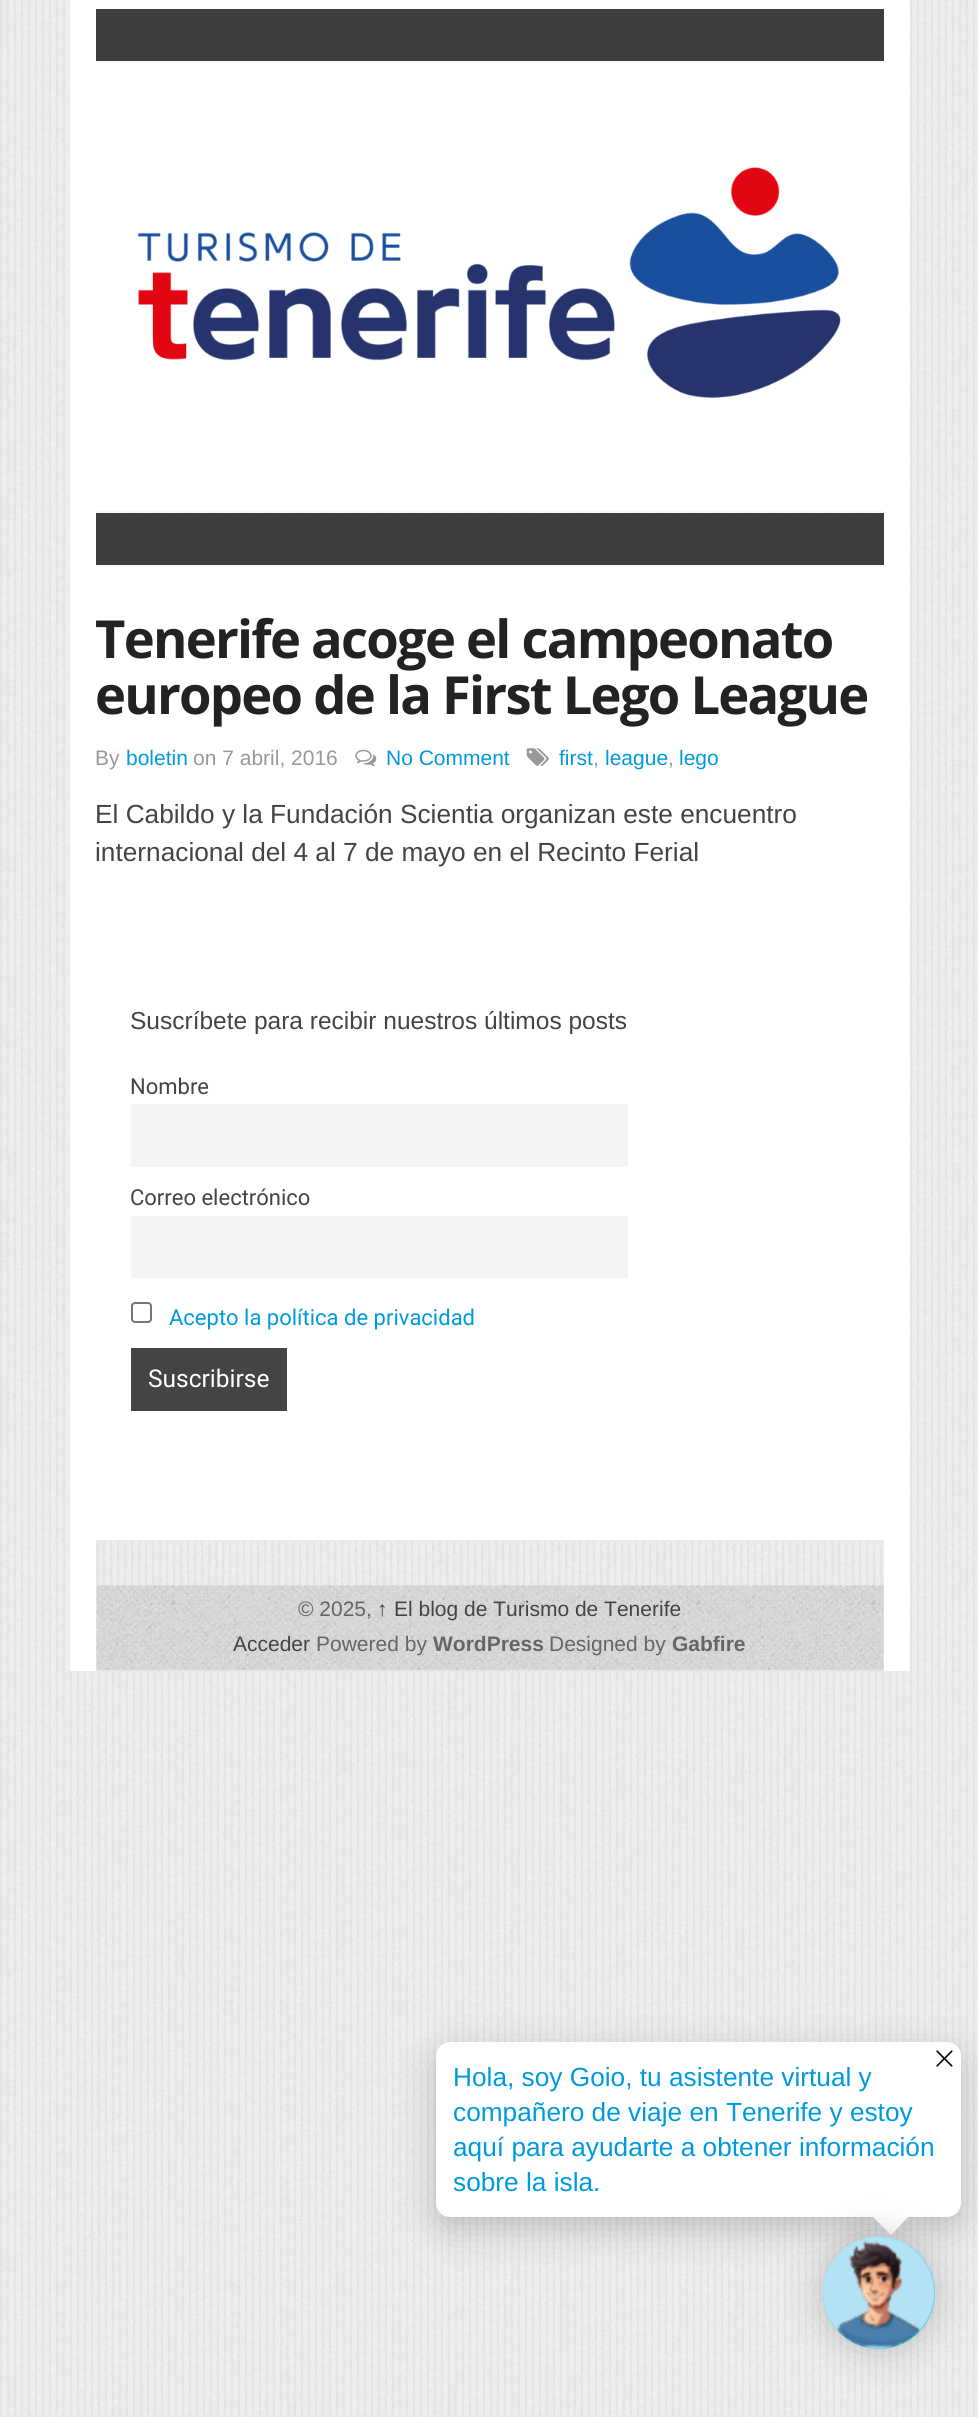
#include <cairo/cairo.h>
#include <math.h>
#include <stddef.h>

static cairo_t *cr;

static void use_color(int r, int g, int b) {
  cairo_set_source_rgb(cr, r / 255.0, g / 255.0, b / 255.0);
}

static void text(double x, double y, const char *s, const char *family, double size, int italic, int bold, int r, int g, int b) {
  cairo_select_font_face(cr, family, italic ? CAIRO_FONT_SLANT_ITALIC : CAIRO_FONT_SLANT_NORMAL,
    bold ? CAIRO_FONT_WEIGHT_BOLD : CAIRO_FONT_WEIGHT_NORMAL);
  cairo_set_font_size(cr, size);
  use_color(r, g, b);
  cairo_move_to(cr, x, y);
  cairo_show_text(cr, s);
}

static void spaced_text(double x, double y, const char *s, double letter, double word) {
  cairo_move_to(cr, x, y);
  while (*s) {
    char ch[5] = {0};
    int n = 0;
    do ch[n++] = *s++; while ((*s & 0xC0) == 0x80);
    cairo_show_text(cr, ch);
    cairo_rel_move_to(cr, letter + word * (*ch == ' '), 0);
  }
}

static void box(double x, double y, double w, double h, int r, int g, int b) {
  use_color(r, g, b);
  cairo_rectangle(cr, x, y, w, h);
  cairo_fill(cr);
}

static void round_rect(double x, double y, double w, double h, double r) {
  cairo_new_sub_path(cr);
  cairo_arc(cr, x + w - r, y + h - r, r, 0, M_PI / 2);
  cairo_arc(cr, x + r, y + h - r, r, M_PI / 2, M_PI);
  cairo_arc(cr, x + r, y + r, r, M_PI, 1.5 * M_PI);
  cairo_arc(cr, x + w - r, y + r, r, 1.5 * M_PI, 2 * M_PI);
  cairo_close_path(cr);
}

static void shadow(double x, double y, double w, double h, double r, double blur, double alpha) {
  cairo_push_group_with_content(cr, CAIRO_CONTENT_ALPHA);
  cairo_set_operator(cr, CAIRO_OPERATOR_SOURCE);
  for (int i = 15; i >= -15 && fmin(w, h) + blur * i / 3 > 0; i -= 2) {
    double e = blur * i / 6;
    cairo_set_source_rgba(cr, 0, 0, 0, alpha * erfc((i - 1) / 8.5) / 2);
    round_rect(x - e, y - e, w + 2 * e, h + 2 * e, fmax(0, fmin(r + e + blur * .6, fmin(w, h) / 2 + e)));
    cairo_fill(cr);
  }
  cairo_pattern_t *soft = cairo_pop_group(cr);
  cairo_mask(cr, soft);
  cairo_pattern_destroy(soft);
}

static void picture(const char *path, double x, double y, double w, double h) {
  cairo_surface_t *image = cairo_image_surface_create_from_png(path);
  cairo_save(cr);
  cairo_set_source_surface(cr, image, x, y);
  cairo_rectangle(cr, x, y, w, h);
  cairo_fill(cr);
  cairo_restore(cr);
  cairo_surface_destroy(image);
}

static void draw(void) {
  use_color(255, 255, 255);
  cairo_paint(cr);
  picture("img_01.png", 0, 0, 978, 2417);
  box(70, 0, 840, 1671, 255, 255, 255);
  cairo_new_path(cr);
  cairo_move_to(cr, 96, 62);
  cairo_line_to(cr, 884, 62);
  use_color(239, 239, 239);
  cairo_set_line_width(cr, 1.8);
  cairo_set_dash(cr, (double[]){1.75, 1.75}, 2, 0);
  cairo_stroke(cr);
  box(96, 9, 788, 52, 61, 61, 61);
  picture("img_02.png", 137, 167, 704, 231);
  cairo_new_path(cr);
  cairo_move_to(cr, 96, 512);
  cairo_line_to(cr, 884, 512);
  use_color(239, 239, 239);
  cairo_stroke(cr);
  cairo_new_path(cr);
  cairo_move_to(cr, 96, 566);
  cairo_line_to(cr, 884, 566);
  cairo_stroke(cr);
  box(96, 513, 788, 52, 61, 61, 61);
  picture("img_03.png", 355, 749, 22, 18);
  picture("img_04.png", 526, 748, 23, 18);
  box(131, 1104, 497, 63, 244, 244, 244);
  box(131, 1216, 497, 62, 244, 244, 244);
  round_rect(132, 1303, 19, 19, 3);
  use_color(118, 118, 118);
  cairo_set_line_width(cr, 2);
  cairo_set_dash(cr, NULL, 0, 0);
  cairo_stroke(cr);
  box(131, 1348, 156, 63, 68, 68, 68);
  box(96, 1542, 788, 44, 238, 238, 238);
  picture("img_05.png", 96, 1542, 788, 44);
  box(96, 1540, 788, 2, 232, 232, 232);
  picture("img_06.png", 96, 1585, 788, 85);
  box(96, 1670, 788, 2, 232, 232, 232);
  use_color(0, 0, 0);
  shadow(436, 2053, 525, 175, 14, 17.5, 0.2);
  use_color(255, 255, 255);
  round_rect(436, 2042, 525, 175, 14);
  cairo_fill(cr);
  picture("img_07.png", 936, 2050, 17, 17);
  cairo_new_path(cr);
  cairo_move_to(cr, 873, 2217);
  cairo_line_to(cr, 908, 2217);
  cairo_line_to(cr, 891, 2235);
  cairo_close_path(cr);
  cairo_fill(cr);
  use_color(0, 0, 0);
  shadow(823, 2237, 112, 112, 56, 17.5, 0.2);
  use_color(44, 204, 211);
  cairo_arc(cr, 879, 2293, 56, 0, 2 * M_PI);
  cairo_fill(cr);
  picture("img_08.png", 822, 2236, 113, 113);
  cairo_select_font_face(cr, "Open Sans", CAIRO_FONT_SLANT_NORMAL, CAIRO_FONT_WEIGHT_BOLD);
  cairo_set_font_size(cr, 52.5);
  use_color(34, 34, 34);
  spaced_text(95, 658, "Tenerife acoge el campeonato", -1.75, 0);
  spaced_text(95, 714, "europeo de la First Lego League", -1.75, 0);
  text(95, 765, "By", "Liberation Sans", 21, 0, 0, 153, 153, 153);
  text(126, 765, "boletin", "Liberation Sans", 21, 0, 0, 0, 154, 222);
  text(193, 765, "on 7 abril, 2016", "Liberation Sans", 21, 0, 0, 153, 153, 153);
  text(386, 765, "No Comment", "Liberation Sans", 21, 0, 0, 0, 154, 222);
  text(559, 765, "first", "Liberation Sans", 21, 0, 0, 0, 154, 222);
  text(593, 765, ",", "Liberation Sans", 21, 0, 0, 153, 153, 153);
  text(605, 765, "league", "Liberation Sans", 21, 0, 0, 0, 154, 222);
  text(668, 765, ",", "Liberation Sans", 21, 0, 0, 153, 153, 153);
  text(679, 765, "lego", "Liberation Sans", 21, 0, 0, 0, 154, 222);
  text(95, 823, "El Cabildo y la Fundación Scientia organizan este encuentro", "Liberation Sans", 26.25, 0, 0, 68, 68, 68);
  text(95, 861, "internacional del 4 al 7 de mayo en el Recinto Ferial", "Liberation Sans", 26.25, 0, 0, 68, 68, 68);
  text(130, 1029, "Suscríbete para recibir nuestros últimos posts", "Liberation Sans", 24.5, 0, 0, 68, 68, 68);
  text(130, 1094, "Nombre", "Roboto", 22, 0, 0, 68, 68, 68);
  text(130, 1205, "Correo electrónico", "Roboto", 22, 0, 0, 68, 68, 68);
  text(169, 1325, "Acepto la política de privacidad", "Roboto", 22, 0, 0, 0, 154, 222);
  text(148, 1387, "Suscribirse", "Roboto", 24.5, 0, 0, 255, 255, 255);
  text(298, 1616, "© 2025,", "Liberation Sans", 21, 0, 0, 102, 102, 102);
  text(377, 1616, "↑", "Liberation Sans", 21, 0, 1, 68, 68, 68);
  text(394, 1616, "El blog de Turismo de Tenerife", "Liberation Sans", 21, 0, 0, 68, 68, 68);
  text(233, 1651, "Acceder", "Liberation Sans", 21, 0, 0, 68, 68, 68);
  text(316, 1651, "Powered by", "Liberation Sans", 21, 0, 0, 102, 102, 102);
  text(433, 1651, "WordPress", "Liberation Sans", 21, 0, 1, 102, 102, 102);
  text(549, 1651, "Designed by", "Liberation Sans", 21, 0, 0, 102, 102, 102);
  text(672, 1651, "Gabfire", "Liberation Sans", 21, 0, 1, 102, 102, 102);
  text(453, 2086, "Hola, soy Goio, tu asistente virtual y", "Liberation Sans", 26.25, 0, 0, 0, 154, 222);
  text(453, 2121, "compañero de viaje en Tenerife y estoy", "Liberation Sans", 26.25, 0, 0, 0, 154, 222);
  text(453, 2156, "aquí para ayudarte a obtener información", "Liberation Sans", 26.25, 0, 0, 0, 154, 222);
  text(453, 2191, "sobre la isla.", "Liberation Sans", 26.25, 0, 0, 0, 154, 222);
}

int main(void) {
  cairo_surface_t *surface = cairo_image_surface_create(CAIRO_FORMAT_RGB24, 978, 2417);
  cr = cairo_create(surface);
  cairo_font_options_t *options = cairo_font_options_create();
  cairo_font_options_set_hint_metrics(options, CAIRO_HINT_METRICS_OFF);
  cairo_font_options_set_hint_style(options, CAIRO_HINT_STYLE_NONE);
  cairo_set_font_options(cr, options);
  cairo_set_miter_limit(cr, 4);
  draw();
  cairo_surface_write_to_png(surface, "out.png");
  cairo_font_options_destroy(options);
  cairo_destroy(cr);
  cairo_surface_destroy(surface);
  return 0;
}
